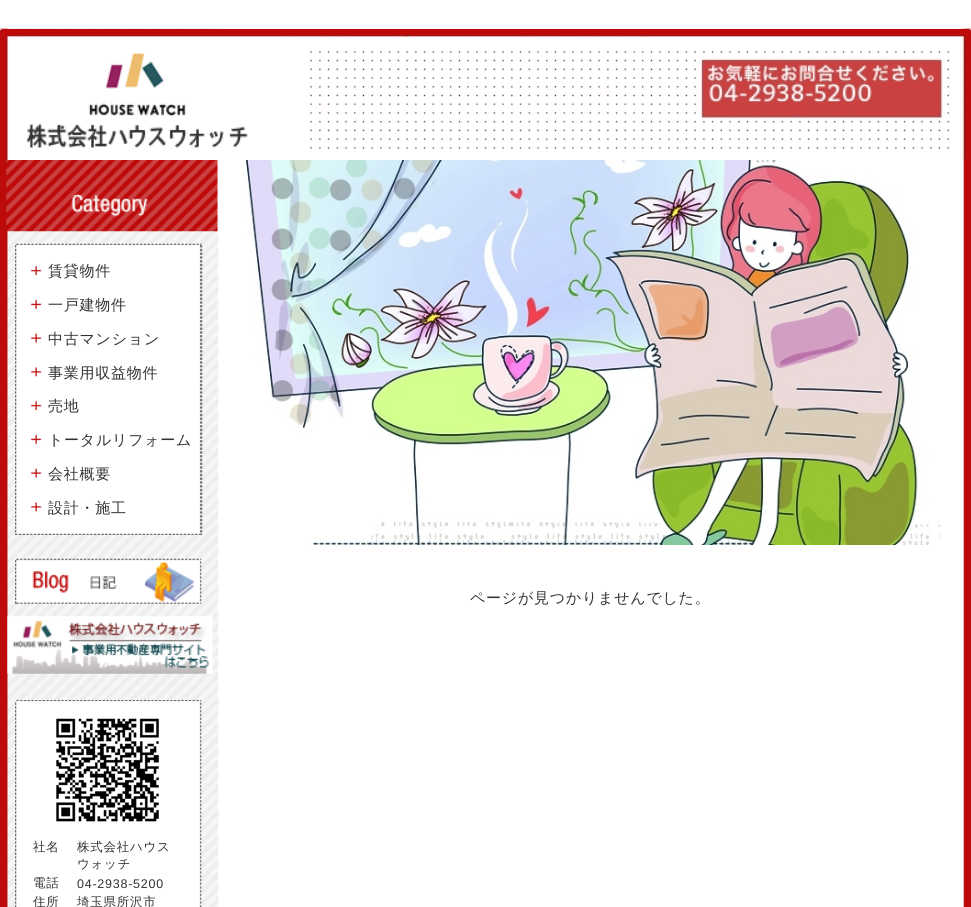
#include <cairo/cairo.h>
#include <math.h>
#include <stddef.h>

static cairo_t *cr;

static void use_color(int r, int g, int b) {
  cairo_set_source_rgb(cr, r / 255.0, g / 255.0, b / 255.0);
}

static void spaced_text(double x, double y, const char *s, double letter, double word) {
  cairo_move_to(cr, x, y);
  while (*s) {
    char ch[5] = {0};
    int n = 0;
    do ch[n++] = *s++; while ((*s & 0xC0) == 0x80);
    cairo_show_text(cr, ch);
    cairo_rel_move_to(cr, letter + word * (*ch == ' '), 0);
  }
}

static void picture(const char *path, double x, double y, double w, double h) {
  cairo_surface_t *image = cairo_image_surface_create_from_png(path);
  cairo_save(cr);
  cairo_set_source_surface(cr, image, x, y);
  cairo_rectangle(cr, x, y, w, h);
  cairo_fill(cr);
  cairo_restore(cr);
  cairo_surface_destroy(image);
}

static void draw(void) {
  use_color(255, 255, 255);
  cairo_paint(cr);
  picture("img_01.png", 0, 28, 971, 879);
  picture("img_02.png", 0, 28, 971, 132);
  picture("img_03.png", 26, 52, 222, 96);
  picture("img_04.png", 6, 160, 212, 72);
  picture("img_05.png", 15, 243, 188, 292);
  picture("img_06.png", 15, 243, 187, 2);
  picture("img_07.png", 31, 266, 11, 9);
  picture("img_08.png", 31, 299, 11, 10);
  picture("img_09.png", 31, 333, 11, 10);
  picture("img_10.png", 31, 367, 11, 10);
  picture("img_07.png", 31, 401, 11, 9);
  picture("img_08.png", 31, 434, 11, 10);
  picture("img_09.png", 31, 468, 11, 10);
  picture("img_10.png", 31, 502, 11, 10);
  picture("img_11.png", 15, 533, 187, 2);
  picture("img_12.png", 15, 558, 187, 46);
  picture("img_13.png", 7, 616, 206, 58);
  picture("img_14.png", 15, 700, 187, 2);
  picture("img_15.png", 15, 701, 187, 206);
  picture("img_16.png", 56, 718, 103, 104);
  picture("img_17.png", 245, 160, 696, 385);
  cairo_select_font_face(cr, "WenQuanYi Zen Hei Medium", CAIRO_FONT_SLANT_NORMAL, CAIRO_FONT_WEIGHT_NORMAL);
  cairo_set_font_size(cr, 15);
  use_color(51, 51, 51);
  spaced_text(48, 276, "賃貸物件", 0.75, 0);
  spaced_text(48, 310, "一戸建物件", 0.75, 0);
  spaced_text(48, 344, "中古マンション", 0.75, 0);
  spaced_text(48, 378, "事業用収益物件", 0.75, 0);
  spaced_text(48, 411, "売地", 0.75, 0);
  spaced_text(48, 445, "トータルリフォーム", 0.75, 0);
  spaced_text(48, 479, "会社概要", 0.75, 0);
  spaced_text(48, 513, "設計・施工", 0.75, 0);
  cairo_set_font_size(cr, 12.5);
  spaced_text(33, 851, "社名", 0.75, 0);
  spaced_text(77, 851, "株式会社ハウス", 0.75, 0);
  spaced_text(77, 868, "ウォッチ", 0.75, 0);
  spaced_text(33, 887, "電話", 0.75, 0);
  cairo_select_font_face(cr, "Liberation Sans", CAIRO_FONT_SLANT_NORMAL, CAIRO_FONT_WEIGHT_NORMAL);
  spaced_text(77, 888, "04-2938-5200", 0.75, 0);
  cairo_select_font_face(cr, "WenQuanYi Zen Hei Medium", CAIRO_FONT_SLANT_NORMAL, CAIRO_FONT_WEIGHT_NORMAL);
  spaced_text(33, 906, "住所", 0.75, 0);
  spaced_text(77, 906, "埼玉県所沢市", 0.75, 0);
  cairo_set_font_size(cr, 15);
  spaced_text(470, 603, "ページが見つかりませんでした。", 0.75, 0);
}

int main(void) {
  cairo_surface_t *surface = cairo_image_surface_create(CAIRO_FORMAT_RGB24, 971, 907);
  cr = cairo_create(surface);
  cairo_font_options_t *options = cairo_font_options_create();
  cairo_font_options_set_hint_metrics(options, CAIRO_HINT_METRICS_OFF);
  cairo_font_options_set_hint_style(options, CAIRO_HINT_STYLE_NONE);
  cairo_set_font_options(cr, options);
  cairo_set_miter_limit(cr, 4);
  draw();
  cairo_surface_write_to_png(surface, "out.png");
  cairo_font_options_destroy(options);
  cairo_destroy(cr);
  cairo_surface_destroy(surface);
  return 0;
}
